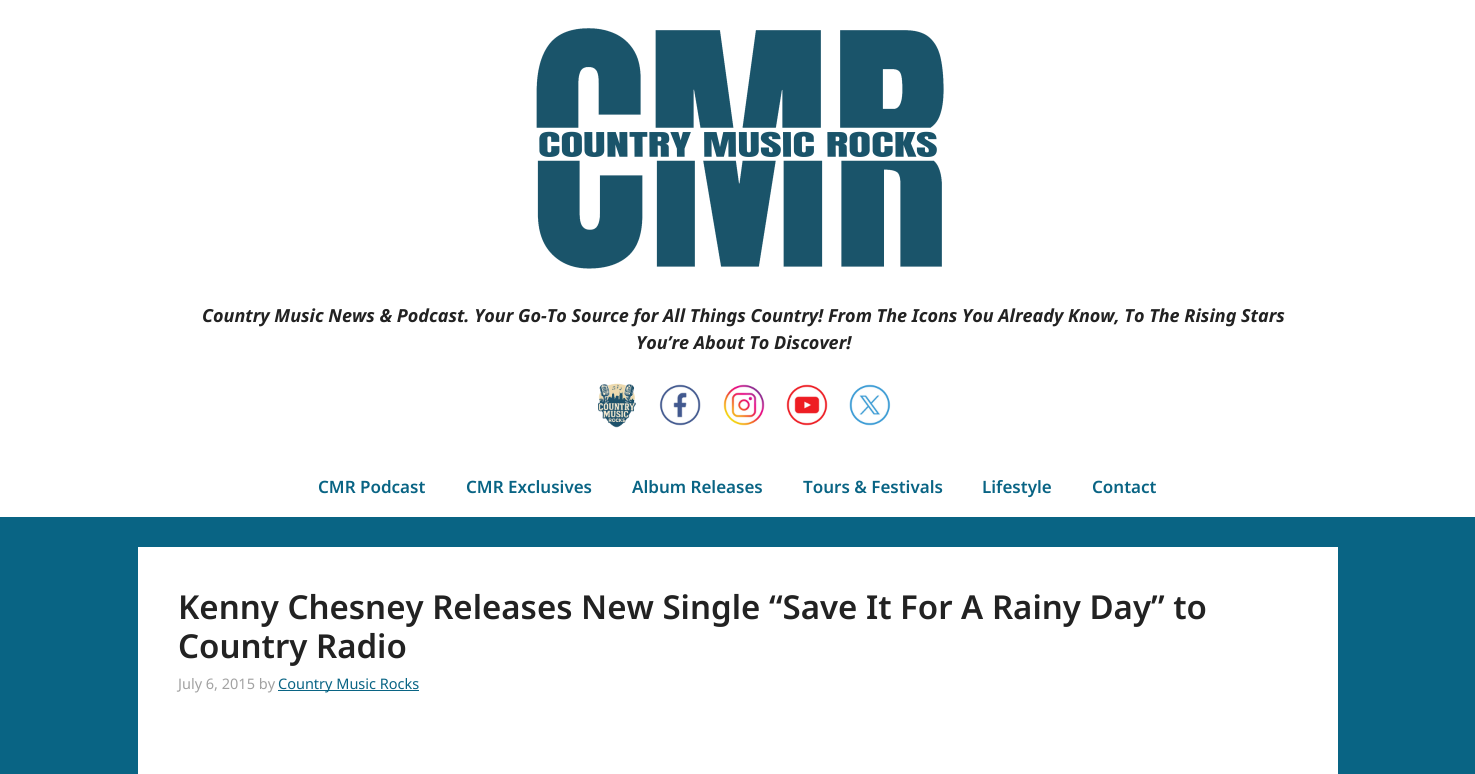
#include <cairo/cairo.h>
#include <math.h>
#include <stddef.h>

static cairo_t *cr;

static void use_color(int r, int g, int b) {
  cairo_set_source_rgb(cr, r / 255.0, g / 255.0, b / 255.0);
}

static void text(double x, double y, const char *s, const char *family, double size, int italic, int bold, int r, int g, int b) {
  cairo_select_font_face(cr, family, italic ? CAIRO_FONT_SLANT_ITALIC : CAIRO_FONT_SLANT_NORMAL,
    bold ? CAIRO_FONT_WEIGHT_BOLD : CAIRO_FONT_WEIGHT_NORMAL);
  cairo_set_font_size(cr, size);
  use_color(r, g, b);
  cairo_move_to(cr, x, y);
  cairo_show_text(cr, s);
}

static void box(double x, double y, double w, double h, int r, int g, int b) {
  use_color(r, g, b);
  cairo_rectangle(cr, x, y, w, h);
  cairo_fill(cr);
}

static void picture(const char *path, double x, double y, double w, double h) {
  cairo_surface_t *image = cairo_image_surface_create_from_png(path);
  cairo_save(cr);
  cairo_set_source_surface(cr, image, x, y);
  cairo_rectangle(cr, x, y, w, h);
  cairo_fill(cr);
  cairo_restore(cr);
  cairo_surface_destroy(image);
}

static void draw(void) {
  use_color(9, 100, 132);
  cairo_paint(cr);
  box(0, 0, 1475, 517, 255, 255, 255);
  picture("img_01.png", 536, 28, 408, 241);
  picture("img_02.png", 598, 383, 38, 45);
  picture("img_03.png", 659, 384, 42, 42);
  picture("img_04.png", 723, 384, 42, 42);
  picture("img_05.png", 786, 384, 42, 42);
  picture("img_06.png", 849, 384, 42, 42);
  box(138, 547, 1200, 227, 255, 255, 255);
  box(278, 690, 141, 1, 9, 100, 132);
  text(202, 322, "Country Music News & Podcast. Your Go-To Source for All Things Country! From The Icons You Already Know, To The Rising Stars", "Noto Sans", 18, 1, 1, 34, 34, 34);
  text(636, 349, "You’re About To Discover!", "Noto Sans", 18, 1, 1, 34, 34, 34);
  text(318, 493, "CMR Podcast", "Noto Sans SemiBold", 17, 0, 0, 9, 100, 132);
  text(466, 493, "CMR Exclusives", "Noto Sans SemiBold", 17, 0, 0, 9, 100, 132);
  text(632, 493, "Album Releases", "Noto Sans SemiBold", 17, 0, 0, 9, 100, 132);
  text(803, 493, "Tours & Festivals", "Noto Sans SemiBold", 17, 0, 0, 9, 100, 132);
  text(982, 493, "Lifestyle", "Noto Sans SemiBold", 17, 0, 0, 9, 100, 132);
  text(1092, 493, "Contact", "Noto Sans SemiBold", 17, 0, 0, 9, 100, 132);
  text(178, 619, "Kenny Chesney Releases New Single “Save It For A Rainy Day” to", "Noto Sans SemiBold", 33, 0, 0, 34, 34, 34);
  text(178, 658, "Country Radio", "Noto Sans SemiBold", 33, 0, 0, 34, 34, 34);
  text(178, 689, "July 6, 2015 by", "Noto Sans", 14.5, 0, 0, 162, 162, 162);
  text(278, 689, "Country Music Rocks", "Noto Sans", 14.5, 0, 0, 9, 100, 132);
}

int main(void) {
  cairo_surface_t *surface = cairo_image_surface_create(CAIRO_FORMAT_RGB24, 1475, 774);
  cr = cairo_create(surface);
  cairo_font_options_t *options = cairo_font_options_create();
  cairo_font_options_set_hint_metrics(options, CAIRO_HINT_METRICS_OFF);
  cairo_font_options_set_hint_style(options, CAIRO_HINT_STYLE_NONE);
  cairo_set_font_options(cr, options);
  cairo_set_miter_limit(cr, 4);
  draw();
  cairo_surface_write_to_png(surface, "out.png");
  cairo_font_options_destroy(options);
  cairo_destroy(cr);
  cairo_surface_destroy(surface);
  return 0;
}
